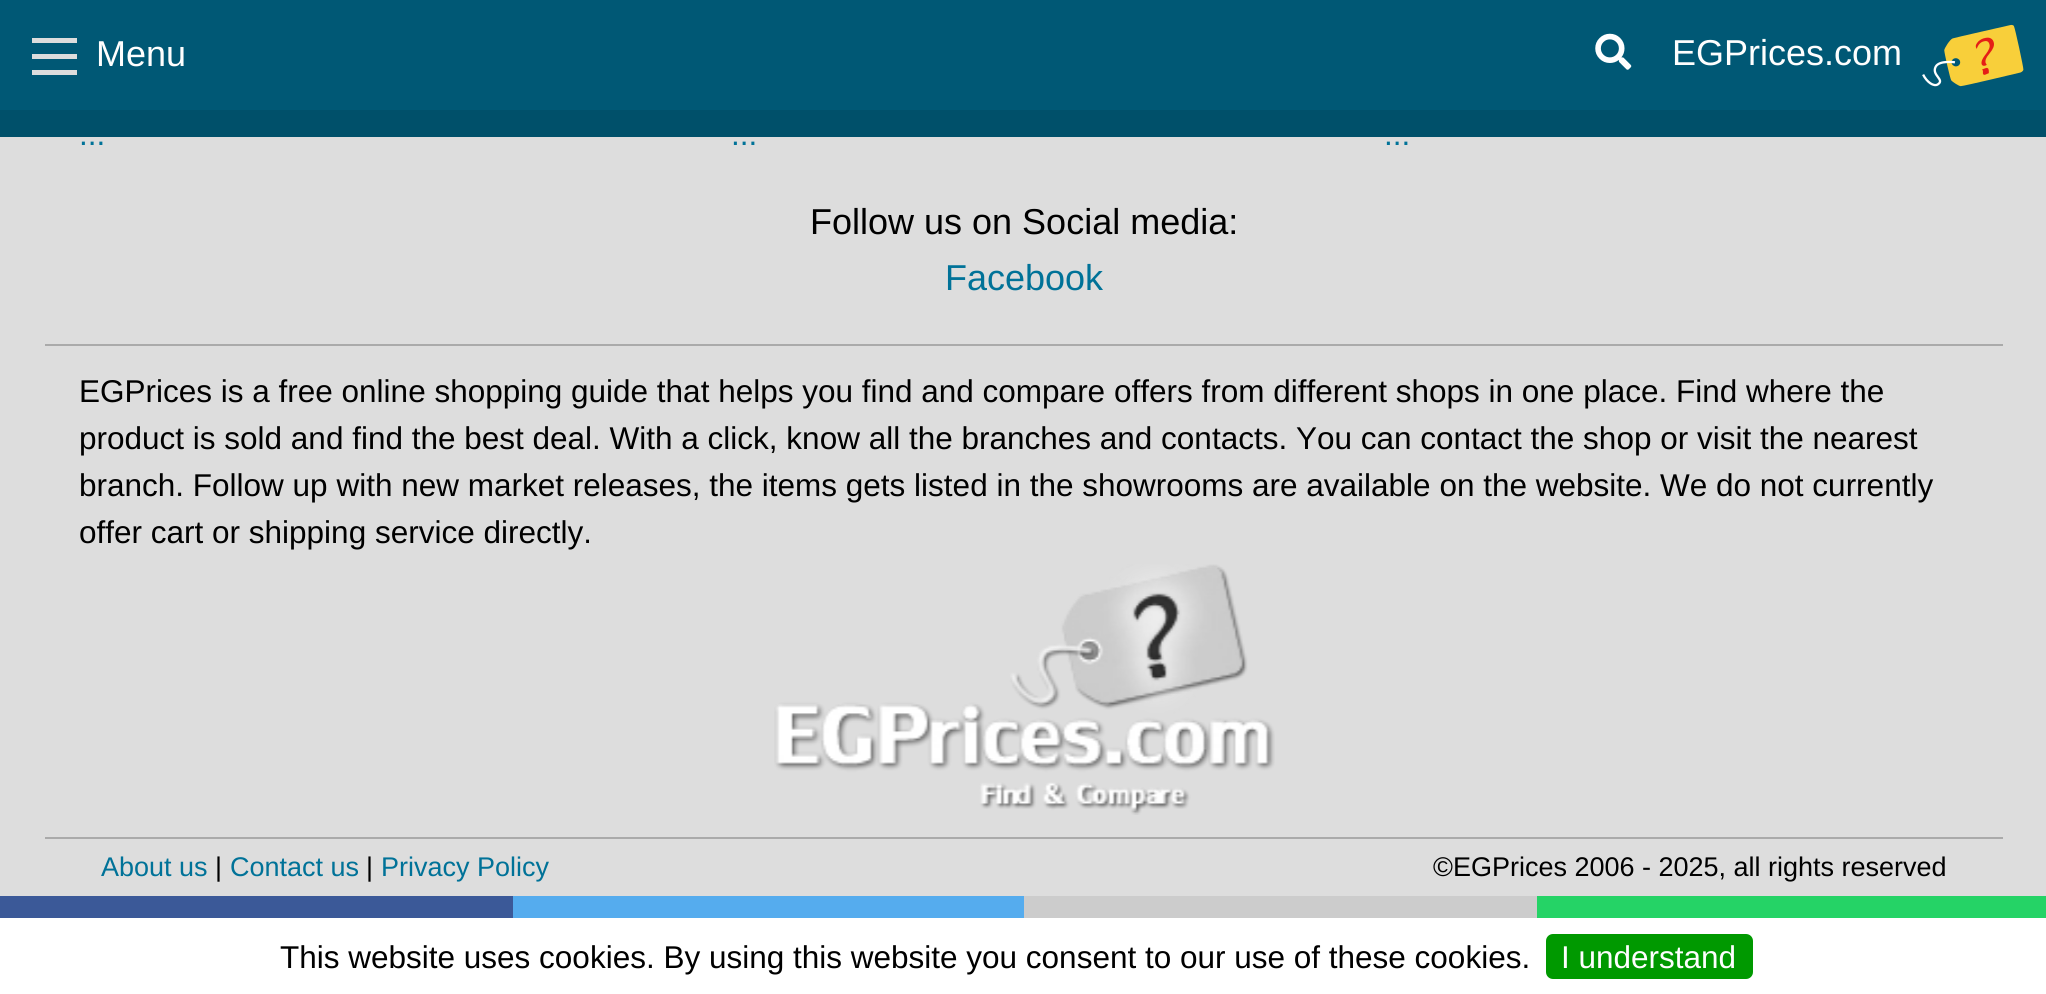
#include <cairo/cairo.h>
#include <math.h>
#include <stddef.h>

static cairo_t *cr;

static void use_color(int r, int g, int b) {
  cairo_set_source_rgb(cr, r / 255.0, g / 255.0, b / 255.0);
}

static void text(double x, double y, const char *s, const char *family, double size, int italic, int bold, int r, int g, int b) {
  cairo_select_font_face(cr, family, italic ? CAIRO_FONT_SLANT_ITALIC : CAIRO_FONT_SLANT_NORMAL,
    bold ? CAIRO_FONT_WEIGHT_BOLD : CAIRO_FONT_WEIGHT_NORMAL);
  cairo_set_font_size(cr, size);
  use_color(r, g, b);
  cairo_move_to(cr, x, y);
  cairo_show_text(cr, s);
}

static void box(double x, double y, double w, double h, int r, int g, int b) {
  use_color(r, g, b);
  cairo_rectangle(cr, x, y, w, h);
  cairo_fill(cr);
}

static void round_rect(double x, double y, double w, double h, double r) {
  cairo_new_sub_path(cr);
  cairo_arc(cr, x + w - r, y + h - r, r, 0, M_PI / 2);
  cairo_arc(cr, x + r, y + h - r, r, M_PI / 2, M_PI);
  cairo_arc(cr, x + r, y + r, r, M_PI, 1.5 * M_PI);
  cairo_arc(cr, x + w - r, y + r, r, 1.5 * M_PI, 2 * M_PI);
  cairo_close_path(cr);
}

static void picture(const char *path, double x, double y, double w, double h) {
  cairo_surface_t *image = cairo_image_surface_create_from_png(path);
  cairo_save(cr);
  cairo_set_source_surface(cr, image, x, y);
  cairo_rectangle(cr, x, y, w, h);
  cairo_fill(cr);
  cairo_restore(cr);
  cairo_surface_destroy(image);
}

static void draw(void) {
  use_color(221, 221, 221);
  cairo_paint(cr);
  box(0, 0, 2046, 110, 0, 88, 117);
  box(32, 70, 45, 5, 221, 221, 221);
  box(32, 54, 45, 5, 221, 221, 221);
  box(32, 38, 45, 5, 221, 221, 221);
  picture("img_01.png", 1595, 33, 37, 37);
  picture("img_02.png", 1922, 24, 102, 63);
  box(0, 110, 2046, 27, 0, 80, 106);
  box(45, 344, 1958, 2, 170, 170, 170);
  picture("img_03.png", 774, 564, 501, 251);
  box(45, 837, 1958, 2, 170, 170, 170);
  box(0, 896, 513, 22, 59, 89, 152);
  box(513, 896, 511, 22, 85, 172, 238);
  box(1024, 896, 513, 22, 204, 204, 204);
  box(1537, 896, 509, 22, 37, 211, 102);
  box(0, 918, 2046, 76, 255, 255, 255);
  use_color(0, 153, 0);
  round_rect(1546, 934, 207, 45, 7);
  cairo_fill(cr);
  text(96, 66, "Menu", "Liberation Sans", 36, 0, 0, 254, 254, 254);
  text(1672, 65, "EGPrices.com", "Liberation Sans", 36, 0, 0, 254, 254, 254);
  text(79, 145, "...", "Liberation Sans", 31.5, 0, 0, 0, 114, 152);
  text(731, 145, "...", "Liberation Sans", 31.5, 0, 0, 0, 114, 152);
  text(1384, 145, "...", "Liberation Sans", 31.5, 0, 0, 0, 114, 152);
  text(810, 234, "Follow us on Social media:", "Liberation Sans", 36, 0, 0, 0, 0, 0);
  text(945, 290, "Facebook", "Liberation Sans", 36, 0, 0, 0, 114, 152);
  text(79, 402, "EGPrices is a free online shopping guide that helps you find and compare offers from different shops in one place. Find where the", "Liberation Sans", 31.5, 0, 0, 0, 0, 0);
  text(79, 449, "product is sold and find the best deal. With a click, know all the branches and contacts. You can contact the shop or visit the nearest", "Liberation Sans", 31.5, 0, 0, 0, 0, 0);
  text(79, 496, "branch. Follow up with new market releases, the items gets listed in the showrooms are available on the website. We do not currently", "Liberation Sans", 31.5, 0, 0, 0, 0, 0);
  text(79, 543, "offer cart or shipping service directly.", "Liberation Sans", 31.5, 0, 0, 0, 0, 0);
  text(101, 876, "About us", "Liberation Sans", 27, 0, 0, 0, 114, 152);
  text(215, 876, "|", "Liberation Sans", 27, 0, 0, 0, 0, 0);
  text(230, 876, "Contact us", "Liberation Sans", 27, 0, 0, 0, 114, 152);
  text(366, 876, "|", "Liberation Sans", 27, 0, 0, 0, 0, 0);
  text(381, 876, "Privacy Policy", "Liberation Sans", 27, 0, 0, 0, 114, 152);
  text(1433, 876, "©EGPrices 2006 - 2025, all rights reserved", "Liberation Sans", 27, 0, 0, 0, 0, 0);
  text(280, 968, "This website uses cookies. By using this website you consent to our use of these cookies.", "Liberation Sans", 31.5, 0, 0, 0, 0, 0);
  text(1561, 968, "I understand", "Liberation Sans", 31.5, 0, 0, 254, 254, 254);
}

int main(void) {
  cairo_surface_t *surface = cairo_image_surface_create(CAIRO_FORMAT_RGB24, 2046, 994);
  cr = cairo_create(surface);
  cairo_font_options_t *options = cairo_font_options_create();
  cairo_font_options_set_hint_metrics(options, CAIRO_HINT_METRICS_OFF);
  cairo_font_options_set_hint_style(options, CAIRO_HINT_STYLE_NONE);
  cairo_set_font_options(cr, options);
  cairo_set_miter_limit(cr, 4);
  draw();
  cairo_surface_write_to_png(surface, "out.png");
  cairo_font_options_destroy(options);
  cairo_destroy(cr);
  cairo_surface_destroy(surface);
  return 0;
}
